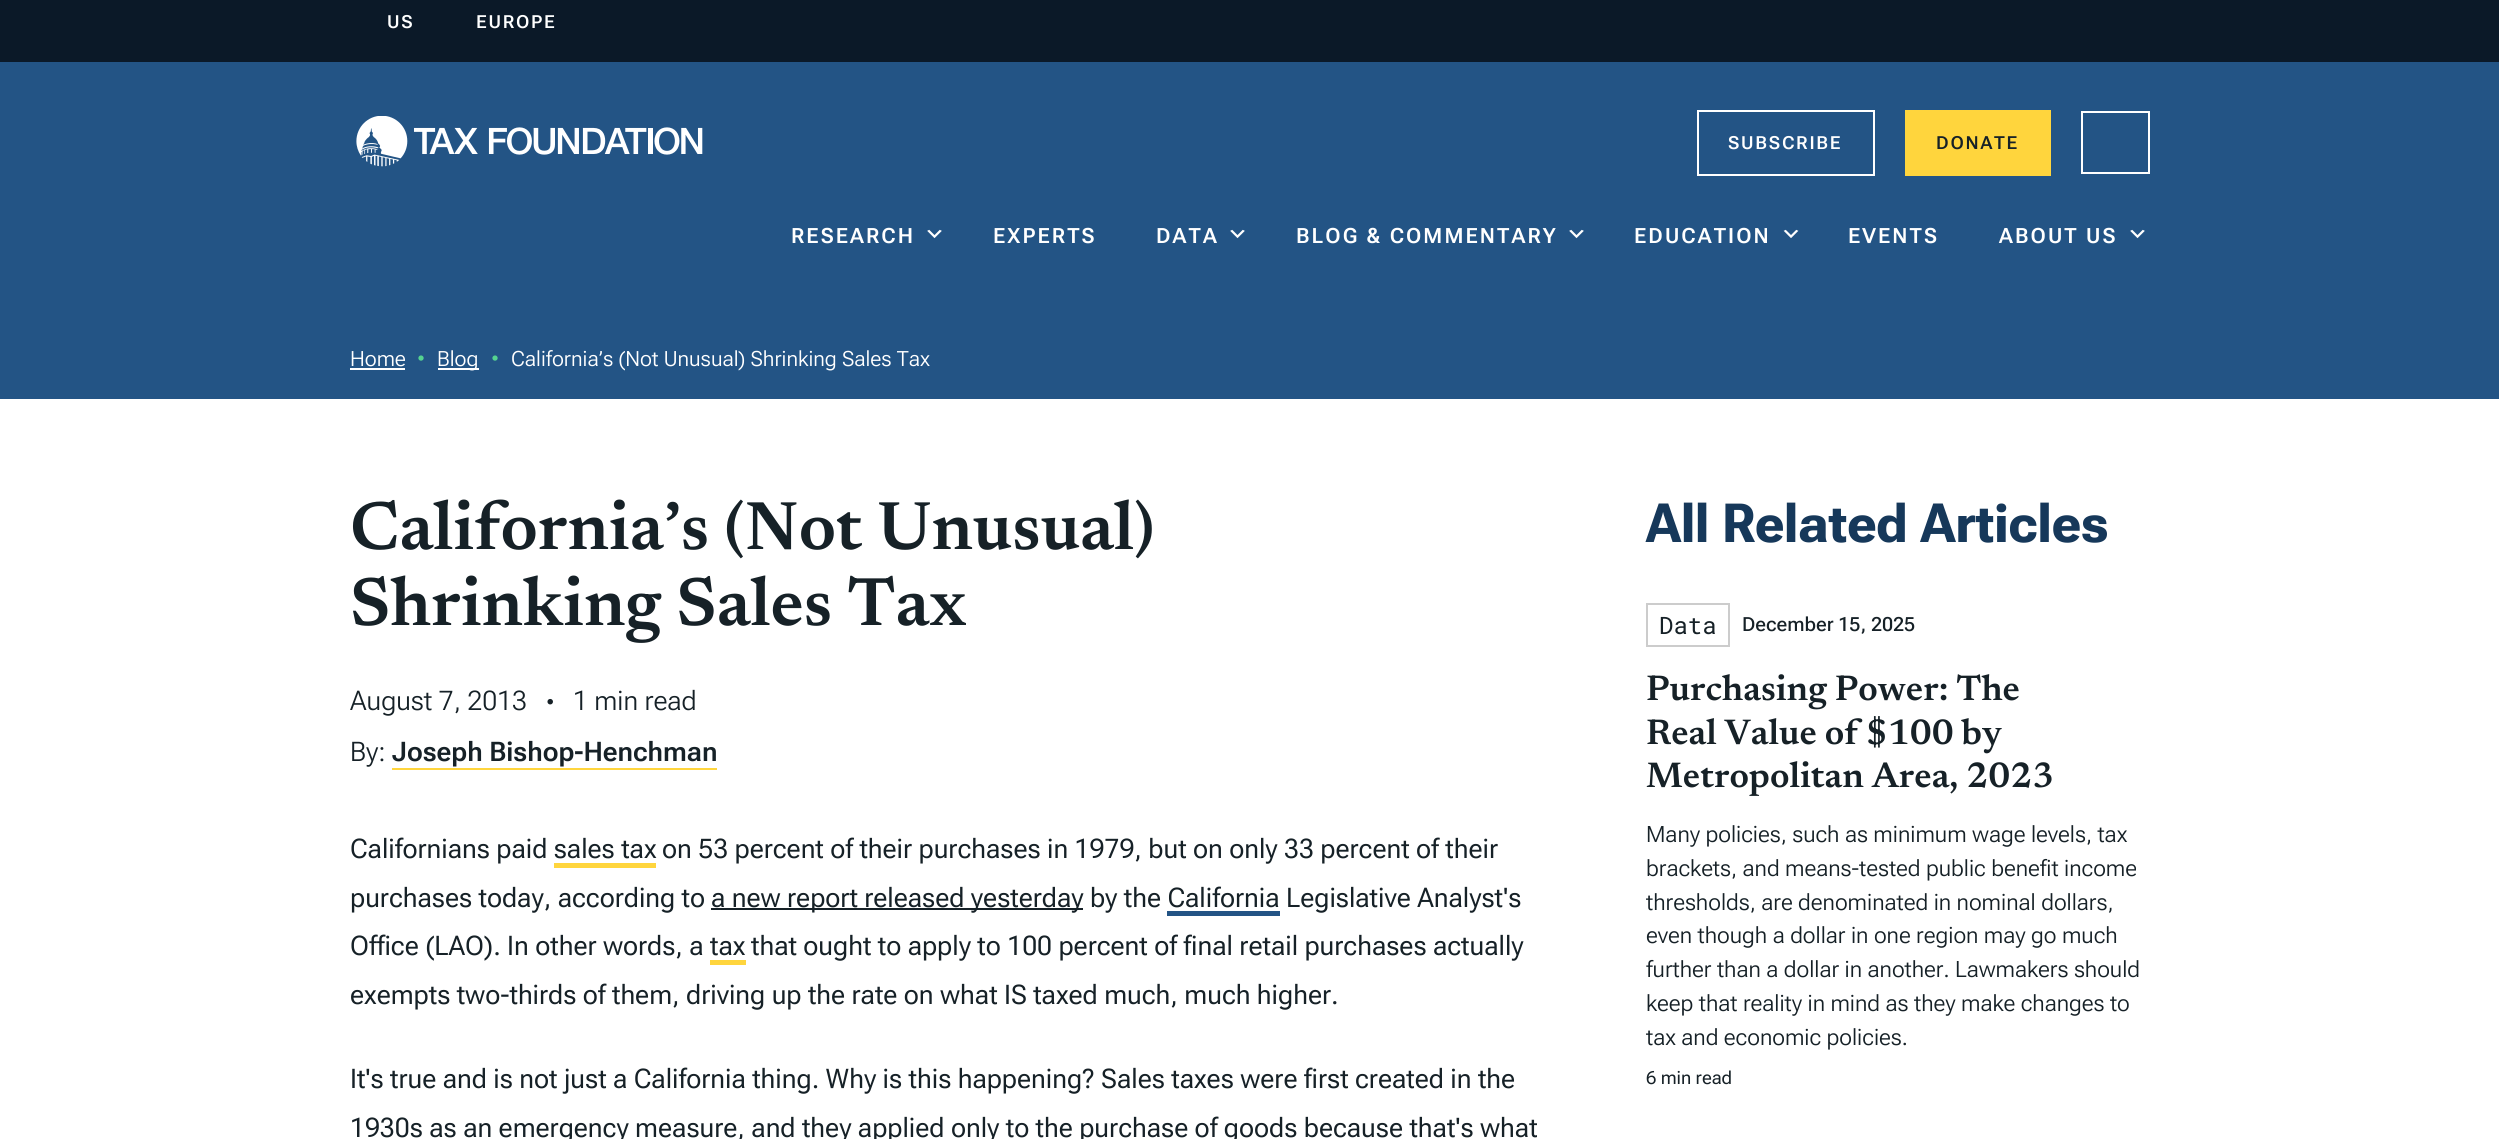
#include <cairo/cairo.h>
#include <math.h>
#include <stddef.h>

static cairo_t *cr;

static void use_color(int r, int g, int b) {
  cairo_set_source_rgb(cr, r / 255.0, g / 255.0, b / 255.0);
}

static void text(double x, double y, const char *s, const char *family, double size, int italic, int bold, int r, int g, int b) {
  cairo_select_font_face(cr, family, italic ? CAIRO_FONT_SLANT_ITALIC : CAIRO_FONT_SLANT_NORMAL,
    bold ? CAIRO_FONT_WEIGHT_BOLD : CAIRO_FONT_WEIGHT_NORMAL);
  cairo_set_font_size(cr, size);
  use_color(r, g, b);
  cairo_move_to(cr, x, y);
  cairo_show_text(cr, s);
}

static void spaced_text(double x, double y, const char *s, double letter, double word) {
  cairo_move_to(cr, x, y);
  while (*s) {
    char ch[5] = {0};
    int n = 0;
    do ch[n++] = *s++; while ((*s & 0xC0) == 0x80);
    cairo_show_text(cr, ch);
    cairo_rel_move_to(cr, letter + word * (*ch == ' '), 0);
  }
}

static void box(double x, double y, double w, double h, int r, int g, int b) {
  use_color(r, g, b);
  cairo_rectangle(cr, x, y, w, h);
  cairo_fill(cr);
}

static void picture(const char *path, double x, double y, double w, double h) {
  cairo_surface_t *image = cairo_image_surface_create_from_png(path);
  cairo_save(cr);
  cairo_set_source_surface(cr, image, x, y);
  cairo_rectangle(cr, x, y, w, h);
  cairo_fill(cr);
  cairo_restore(cr);
  cairo_surface_destroy(image);
}

static void draw(void) {
  use_color(255, 255, 255);
  cairo_paint(cr);
  box(0, 62, 2499, 337, 35, 84, 133);
  box(0, 0, 2499, 62, 11, 25, 40);
  picture("img_01.png", 356, 116, 347, 51);
  cairo_rectangle(cr, 1698, 111, 176, 64);
  use_color(255, 255, 255);
  cairo_stroke(cr);
  box(1905, 110, 146, 66, 255, 213, 61);
  cairo_rectangle(cr, 2082, 112, 67, 61);
  use_color(255, 255, 255);
  cairo_stroke(cr);
  picture("img_02.png", 927, 229, 15, 10);
  picture("img_02.png", 1230, 229, 15, 10);
  picture("img_02.png", 1569, 229, 15, 10);
  picture("img_03.png", 1783, 229, 16, 9);
  picture("img_02.png", 2130, 229, 15, 10);
  box(350, 368, 55, 2, 255, 255, 255);
  box(438, 368, 41, 2, 255, 255, 255);
  box(392, 768, 325, 2, 255, 213, 61);
  box(711, 908, 372, 2, 22, 33, 39);
  cairo_rectangle(cr, 1647, 604, 82, 42);
  use_color(204, 204, 204);
  cairo_stroke(cr);
  cairo_select_font_face(cr, "Roboto Flex SemiBold", CAIRO_FONT_SLANT_NORMAL, CAIRO_FONT_WEIGHT_NORMAL);
  cairo_set_font_size(cr, 18);
  use_color(255, 255, 255);
  spaced_text(387, 28, "US", 1.75, 0);
  spaced_text(476, 28, "EUROPE", 1.75, 0);
  spaced_text(1728, 149, "SUBSCRIBE", 1.75, 0);
  use_color(22, 33, 39);
  spaced_text(1936, 149, "DONATE", 1.75, 0);
  cairo_select_font_face(cr, "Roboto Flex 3 SemiBold", CAIRO_FONT_SLANT_NORMAL, CAIRO_FONT_WEIGHT_NORMAL);
  cairo_set_font_size(cr, 21);
  use_color(255, 255, 255);
  spaced_text(791, 243, "RESEARCH", 2.1, 0);
  spaced_text(993, 243, "EXPERTS", 2.1, 0);
  spaced_text(1156, 243, "DATA", 2.1, 0);
  spaced_text(1296, 243, "BLOG & COMMENTARY", 2.1, 0);
  spaced_text(1634, 243, "EDUCATION", 2.1, 0);
  spaced_text(1848, 243, "EVENTS", 2.1, 0);
  spaced_text(1999, 243, "ABOUT US", 2.1, 0);
  text(350, 366, "Home", "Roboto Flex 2 Light", 21, 0, 0, 255, 255, 255);
  text(417, 366, "•", "Roboto Flex 2 Light", 21, 0, 0, 85, 211, 144);
  text(437, 366, "Blog", "Roboto Flex 2 Light", 21, 0, 0, 255, 255, 255);
  text(491, 366, "•", "Roboto Flex 2 Light", 21, 0, 0, 85, 211, 144);
  text(511, 366, "California’s (Not Unusual) Shrinking Sales Tax", "Roboto Flex 2 Light", 21, 0, 0, 255, 255, 255);
  text(350, 549, "California’s (Not Unusual)", "Newsreader SemiBold", 69, 0, 0, 22, 33, 39);
  text(350, 625, "Shrinking Sales Tax", "Newsreader SemiBold", 69, 0, 0, 22, 33, 39);
  text(350, 710, "August 7, 2013", "Roboto Flex Light", 27, 0, 0, 22, 33, 39);
  text(546, 710, "•", "Roboto Flex 2 Light", 22, 0, 0, 22, 33, 39);
  text(573, 710, "1 min read", "Roboto Flex Light", 27, 0, 0, 22, 33, 39);
  text(350, 761, "By:", "Roboto Flex Light", 27, 0, 0, 22, 33, 39);
  text(392, 761, "Joseph Bishop-Henchman", "Roboto Flex 2 SemiBold", 27, 0, 0, 22, 33, 39);
  text(350, 858, "Californians paid sales tax", "Roboto Flex", 27, 0, 0, 22, 33, 39);
  text(662, 858, "on 53 percent of their purchases in 1979, but on only 33 percent of their", "Roboto Flex", 27, 0, 0, 22, 33, 39);
  box(554, 863, 102, 5, 255, 213, 61);
  text(350, 907, "purchases today, according to", "Roboto Flex", 27, 0, 0, 22, 33, 39);
  text(711, 907, "a new report released yesterday by the California Legislative Analyst's", "Roboto Flex", 27, 0, 0, 22, 33, 39);
  box(1167, 911, 113, 5, 35, 84, 133);
  text(350, 955, "Office (LAO). In other words, a tax", "Roboto Flex", 27, 0, 0, 22, 33, 39);
  text(751, 955, "that ought to apply to 100 percent of final retail purchases actually", "Roboto Flex", 27, 0, 0, 22, 33, 39);
  box(710, 960, 36, 5, 255, 213, 61);
  text(350, 1004, "exempts two-thirds of them, driving up the rate on what IS taxed much, much higher.", "Roboto Flex", 27, 0, 0, 22, 33, 39);
  text(350, 1088, "It's true and is not just a California thing. Why is this happening? Sales taxes were first created in the", "Roboto Flex", 27, 0, 0, 22, 33, 39);
  text(350, 1137, "1930s as an emergency measure, and they applied only to the purchase of goods because that's what", "Roboto Flex", 27, 0, 0, 22, 33, 39);
  text(1646, 542, "All Related Articles", "Roboto Flex", 54, 0, 1, 22, 56, 90);
  text(1659, 634, "Data", "Roboto Mono", 24, 0, 0, 22, 33, 39);
  text(1742, 631, "December 15, 2025", "Roboto Flex Medium", 19.5, 0, 0, 22, 33, 39);
  text(1646, 700, "Purchasing Power: The", "Newsreader SemiBold", 36, 0, 0, 22, 33, 39);
  text(1646, 744, "Real Value of $100 by", "Newsreader SemiBold", 36, 0, 0, 22, 33, 39);
  text(1646, 787, "Metropolitan Area, 2023", "Newsreader SemiBold", 36, 0, 0, 22, 33, 39);
  text(1646, 842, "Many policies, such as minimum wage levels, tax", "Roboto Flex 3 Light", 22.5, 0, 0, 22, 33, 39);
  text(1646, 876, "brackets, and means-tested public benefit income", "Roboto Flex 3 Light", 22.5, 0, 0, 22, 33, 39);
  text(1646, 910, "thresholds, are denominated in nominal dollars,", "Roboto Flex 3 Light", 22.5, 0, 0, 22, 33, 39);
  text(1646, 943, "even though a dollar in one region may go much", "Roboto Flex 3 Light", 22.5, 0, 0, 22, 33, 39);
  text(1646, 977, "further than a dollar in another. Lawmakers should", "Roboto Flex 3 Light", 22.5, 0, 0, 22, 33, 39);
  text(1646, 1011, "keep that reality in mind as they make changes to", "Roboto Flex 3 Light", 22.5, 0, 0, 22, 33, 39);
  text(1646, 1045, "tax and economic policies.", "Roboto Flex 3 Light", 22.5, 0, 0, 22, 33, 39);
  text(1646, 1084, "6 min read", "Roboto Flex 2", 18, 0, 0, 22, 33, 39);
}

int main(void) {
  cairo_surface_t *surface = cairo_image_surface_create(CAIRO_FORMAT_RGB24, 2499, 1139);
  cr = cairo_create(surface);
  cairo_font_options_t *options = cairo_font_options_create();
  cairo_font_options_set_hint_metrics(options, CAIRO_HINT_METRICS_OFF);
  cairo_font_options_set_hint_style(options, CAIRO_HINT_STYLE_NONE);
  cairo_set_font_options(cr, options);
  cairo_set_miter_limit(cr, 4);
  draw();
  cairo_surface_write_to_png(surface, "out.png");
  cairo_font_options_destroy(options);
  cairo_destroy(cr);
  cairo_surface_destroy(surface);
  return 0;
}
